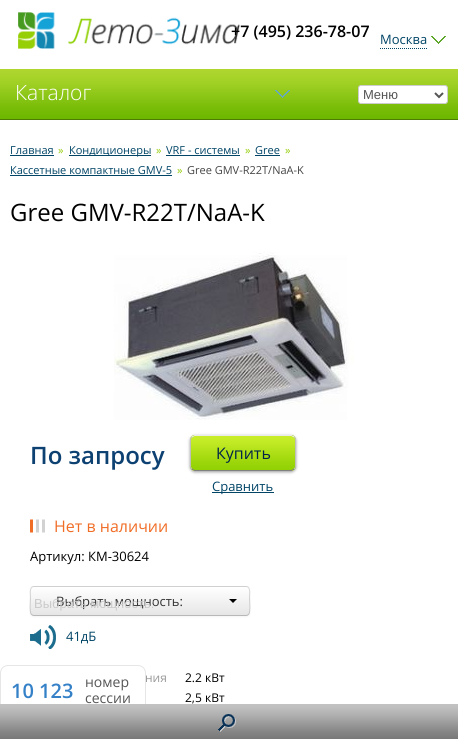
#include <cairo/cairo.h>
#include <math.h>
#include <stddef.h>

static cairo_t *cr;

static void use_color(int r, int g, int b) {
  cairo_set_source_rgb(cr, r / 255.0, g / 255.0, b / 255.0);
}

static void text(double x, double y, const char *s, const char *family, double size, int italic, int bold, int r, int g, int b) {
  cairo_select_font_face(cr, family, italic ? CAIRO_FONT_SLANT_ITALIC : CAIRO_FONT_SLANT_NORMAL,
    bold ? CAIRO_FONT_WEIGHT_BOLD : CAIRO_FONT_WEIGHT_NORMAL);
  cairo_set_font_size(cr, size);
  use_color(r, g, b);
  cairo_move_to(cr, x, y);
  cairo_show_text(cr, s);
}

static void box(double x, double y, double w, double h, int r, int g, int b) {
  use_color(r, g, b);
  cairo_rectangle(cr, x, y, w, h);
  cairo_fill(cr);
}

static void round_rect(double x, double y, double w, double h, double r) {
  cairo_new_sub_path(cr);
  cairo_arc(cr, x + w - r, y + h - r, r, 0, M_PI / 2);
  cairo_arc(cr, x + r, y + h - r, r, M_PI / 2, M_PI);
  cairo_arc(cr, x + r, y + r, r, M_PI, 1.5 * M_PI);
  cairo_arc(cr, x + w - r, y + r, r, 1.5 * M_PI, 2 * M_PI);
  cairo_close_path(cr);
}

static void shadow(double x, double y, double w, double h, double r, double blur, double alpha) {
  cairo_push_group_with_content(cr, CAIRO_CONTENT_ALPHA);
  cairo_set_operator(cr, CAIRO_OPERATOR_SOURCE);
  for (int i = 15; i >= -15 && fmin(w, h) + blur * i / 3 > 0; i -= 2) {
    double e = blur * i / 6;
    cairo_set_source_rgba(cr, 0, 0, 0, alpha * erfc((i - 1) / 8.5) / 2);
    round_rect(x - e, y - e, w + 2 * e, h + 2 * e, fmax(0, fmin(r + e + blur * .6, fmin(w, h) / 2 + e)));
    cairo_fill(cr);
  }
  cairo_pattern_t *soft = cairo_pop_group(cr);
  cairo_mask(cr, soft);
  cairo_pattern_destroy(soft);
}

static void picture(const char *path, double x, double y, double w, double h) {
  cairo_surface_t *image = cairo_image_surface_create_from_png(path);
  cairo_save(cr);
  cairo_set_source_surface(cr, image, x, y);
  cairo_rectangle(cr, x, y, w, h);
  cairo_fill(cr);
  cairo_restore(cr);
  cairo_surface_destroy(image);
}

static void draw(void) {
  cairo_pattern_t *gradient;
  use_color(255, 255, 255);
  cairo_paint(cr);
  picture("img_01.png", 18, 12, 222, 37);
  cairo_new_path(cr);
  cairo_move_to(cr, 380, 48.5);
  cairo_line_to(cr, 427, 48.5);
  use_color(0, 68, 102);
  cairo_set_line_width(cr, 1);
  cairo_set_dash(cr, (double[]){1, 1}, 2, 0);
  cairo_stroke(cr);
  picture("img_02.png", 431, 36, 15, 8);
  gradient = cairo_pattern_create_linear(229, 69, 229, 119);
  cairo_pattern_add_color_stop_rgba(gradient, 0, 0.69, 0.843, 0.184, 1);
  cairo_pattern_add_color_stop_rgba(gradient, 0.26, 0.635, 0.82, 0.149, 1);
  cairo_pattern_add_color_stop_rgba(gradient, 0.77, 0.475, 0.741, 0.035, 1);
  cairo_pattern_add_color_stop_rgba(gradient, 1, 0.424, 0.718, 0, 1);
  cairo_set_source(cr, gradient);
  cairo_pattern_destroy(gradient);
  cairo_rectangle(cr, 0, 69, 458, 50);
  cairo_fill(cr);
  box(0, 119, 458, 1, 77, 123, 3);
  picture("img_03.png", 275, 90, 15, 8);
  use_color(255, 255, 255);
  round_rect(358.5, 85.5, 89, 18, 2.5);
  cairo_fill_preserve(cr);
  use_color(204, 204, 204);
  cairo_set_dash(cr, NULL, 0, 0);
  cairo_stroke(cr);
  cairo_new_path(cr);
  cairo_move_to(cr, 435, 93);
  cairo_line_to(cr, 439, 97);
  cairo_line_to(cr, 443, 93);
  use_color(85, 85, 85);
  cairo_set_line_width(cr, 2);
  cairo_stroke(cr);
  box(10, 155, 44, 1, 0, 68, 102);
  box(69, 155, 82, 1, 0, 68, 102);
  box(166, 155, 74, 1, 0, 68, 102);
  box(255, 155, 25, 1, 0, 68, 102);
  box(10, 175, 162, 1, 0, 68, 102);
  picture("img_04.png", 114, 252, 240, 168);
  use_color(0, 0, 0);
  shadow(190, 436, 106, 36, 5, 1.5, 0.4);
  cairo_save(cr);
  round_rect(190, 435, 106, 36, 5);
  cairo_clip(cr);
  gradient = cairo_pattern_create_linear(243, 402, 243, 436);
  cairo_pattern_add_color_stop_rgba(gradient, 0, 0.788, 0.933, 0.161, 1);
  cairo_pattern_add_color_stop_rgba(gradient, 0.17, 0.765, 0.922, 0.145, 1);
  cairo_pattern_add_color_stop_rgba(gradient, 0.77, 0.612, 0.839, 0.039, 1);
  cairo_pattern_add_color_stop_rgba(gradient, 1, 0.569, 0.82, 0.012, 1);
  cairo_set_source(cr, gradient);
  cairo_pattern_destroy(gradient);
  cairo_rectangle(cr, 190, 435, 106, 1);
  cairo_fill(cr);
  gradient = cairo_pattern_create_linear(243, 436, 243, 470);
  cairo_pattern_add_color_stop_rgba(gradient, 0, 0.788, 0.933, 0.161, 1);
  cairo_pattern_add_color_stop_rgba(gradient, 0.17, 0.765, 0.922, 0.145, 1);
  cairo_pattern_add_color_stop_rgba(gradient, 0.77, 0.612, 0.839, 0.039, 1);
  cairo_pattern_add_color_stop_rgba(gradient, 1, 0.569, 0.82, 0.012, 1);
  cairo_set_source(cr, gradient);
  cairo_pattern_destroy(gradient);
  cairo_rectangle(cr, 190, 436, 106, 34);
  cairo_fill(cr);
  gradient = cairo_pattern_create_linear(243, 470, 243, 504);
  cairo_pattern_add_color_stop_rgba(gradient, 0, 0.788, 0.933, 0.161, 1);
  cairo_pattern_add_color_stop_rgba(gradient, 0.17, 0.765, 0.922, 0.145, 1);
  cairo_pattern_add_color_stop_rgba(gradient, 0.77, 0.612, 0.839, 0.039, 1);
  cairo_pattern_add_color_stop_rgba(gradient, 1, 0.569, 0.82, 0.012, 1);
  cairo_set_source(cr, gradient);
  cairo_pattern_destroy(gradient);
  cairo_rectangle(cr, 190, 470, 106, 1);
  cairo_fill(cr);
  cairo_restore(cr);
  cairo_new_path(cr);
  cairo_move_to(cr, 192, 437);
  cairo_line_to(cr, 194.5, 435.5);
  cairo_line_to(cr, 291.5, 435.5);
  cairo_line_to(cr, 294, 437);
  use_color(234, 234, 234);
  cairo_set_line_width(cr, 1);
  cairo_stroke(cr);
  cairo_new_path(cr);
  cairo_move_to(cr, 294, 437);
  cairo_curve_to(cr, 295, 437.5, 295.5, 439, 295.5, 440);
  cairo_line_to(cr, 295.5, 466);
  cairo_curve_to(cr, 295.5, 467, 295, 468.5, 294, 469);
  use_color(191, 191, 191);
  cairo_stroke(cr);
  cairo_new_path(cr);
  cairo_move_to(cr, 294, 469);
  cairo_line_to(cr, 291.5, 470.5);
  cairo_line_to(cr, 194.5, 470.5);
  cairo_line_to(cr, 192, 469);
  use_color(128, 128, 128);
  cairo_stroke(cr);
  cairo_new_path(cr);
  cairo_move_to(cr, 192, 469);
  cairo_curve_to(cr, 191, 468.5, 190.5, 467, 190.5, 466);
  cairo_line_to(cr, 190.5, 440);
  cairo_curve_to(cr, 190.5, 439, 191, 437.5, 192, 437);
  use_color(191, 191, 191);
  cairo_stroke(cr);
  box(212, 492, 62, 1, 0, 68, 102);
  picture("img_05.png", 30, 519, 15, 14);
  use_color(0, 0, 0);
  shadow(30, 587, 220, 30, 4, 1, 0.05);
  use_color(245, 245, 245);
  round_rect(30, 586, 220, 30, 4);
  cairo_fill(cr);
  cairo_save(cr);
  round_rect(30, 586, 220, 30, 4);
  cairo_clip(cr);
  gradient = cairo_pattern_create_linear(140, 587, 140, 615);
  cairo_pattern_add_color_stop_rgba(gradient, 0, 1, 1, 1, 1);
  cairo_pattern_add_color_stop_rgba(gradient, 1, 0.902, 0.902, 0.902, 1);
  cairo_set_source(cr, gradient);
  cairo_pattern_destroy(gradient);
  cairo_rectangle(cr, 30, 587, 220, 28);
  cairo_fill(cr);
  cairo_restore(cr);
  cairo_new_path(cr);
  cairo_move_to(cr, 248.5, 614.5);
  cairo_curve_to(cr, 248, 615, 247, 615.5, 246, 615.5);
  cairo_line_to(cr, 34, 615.5);
  cairo_curve_to(cr, 33, 615.5, 32, 615, 31.5, 614.5);
  use_color(184, 184, 184);
  cairo_stroke(cr);
  cairo_new_path(cr);
  cairo_move_to(cr, 31.5, 614.5);
  cairo_curve_to(cr, 29, 612, 30.5, 600.5, 30.5, 597.5);
  cairo_curve_to(cr, 30.5, 594.5, 29, 586.5, 34, 586.5);
  cairo_line_to(cr, 246, 586.5);
  cairo_curve_to(cr, 251, 586.5, 249.5, 594.5, 249.5, 597.5);
  cairo_curve_to(cr, 249.5, 600.5, 251, 612, 248.5, 614.5);
  cairo_set_source_rgba(cr, 0, 0, 0, 0.15);
  cairo_stroke(cr);
  use_color(0, 0, 0);
  cairo_new_path(cr);
  cairo_move_to(cr, 229, 599);
  cairo_line_to(cr, 237, 599);
  cairo_line_to(cr, 233, 603);
  cairo_close_path(cr);
  cairo_fill(cr);
  picture("img_06.png", 30, 625, 26, 24);
  text(231, 37, "+7 (495) 236-78-07", "Open Sans SemiBold", 16, 0, 0, 0, 0, 0);
  text(380, 44, "Москва", "Open Sans", 13, 0, 0, 0, 68, 102);
  text(15, 100, "Каталог", "Open Sans Light", 21, 0, 0, 255, 255, 255);
  text(363, 99, "Меню", "Liberation Sans", 13, 0, 0, 85, 85, 85);
  text(10, 154, "Главная", "Open Sans", 11, 0, 0, 0, 68, 102);
  text(58, 154, "»", "Open Sans", 11, 0, 0, 145, 204, 3);
  text(69, 154, "Кондиционеры", "Open Sans", 11, 0, 0, 0, 68, 102);
  text(156, 154, "»", "Open Sans", 11, 0, 0, 145, 204, 3);
  text(166, 154, "VRF - системы", "Open Sans", 11, 0, 0, 0, 68, 102);
  text(245, 154, "»", "Open Sans", 11, 0, 0, 145, 204, 3);
  text(255, 154, "Gree", "Open Sans", 11, 0, 0, 0, 68, 102);
  text(285, 154, "»", "Open Sans", 11, 0, 0, 145, 204, 3);
  text(10, 174, "Кассетные компактные GMV-5", "Open Sans", 11, 0, 0, 0, 68, 102);
  text(177, 174, "»", "Open Sans", 11, 0, 0, 145, 204, 3);
  text(187, 174, "Gree GMV-R22T/NaA-K", "Open Sans", 11, 0, 0, 68, 68, 68);
  text(10, 221, "Gree GMV-R22T/NaA-K", "Open Sans", 24, 0, 0, 0, 0, 0);
  text(30, 464, "По запросу", "Open Sans SemiBold", 24, 0, 0, 12, 65, 114);
  text(216, 459, "Купить", "Open Sans", 16, 0, 0, 0, 37, 72);
  text(212, 491, "Сравнить", "Open Sans", 13, 0, 0, 0, 68, 102);
  text(54, 532, "Нет в наличии", "Open Sans", 16, 0, 0, 240, 109, 38);
  text(30, 561, "Артикул: КМ-30624", "Open Sans", 13, 0, 0, 0, 0, 0);
  text(56, 606, "Выбрать мощность:", "Open Sans", 13, 0, 0, 51, 51, 51);
  text(34, 608, "Выбрать мощность:", "Liberation Sans", 13, 0, 0, 202, 202, 202);
  text(66, 641, "41дБ", "Open Sans", 13, 0, 0, 0, 68, 102);
  text(145, 682, "ния", "Open Sans", 12, 0, 0, 153, 153, 153);
  use_color(255, 255, 255);
  round_rect(0.5, 665.5, 145, 49, 7.5);
  cairo_fill_preserve(cr);
  use_color(230, 230, 230);
  cairo_stroke(cr);
  text(85, 703, "сессии", "Open Sans", 14, 0, 0, 85, 85, 85);
  text(85, 687, "номер", "Open Sans", 14, 0, 0, 85, 85, 85);
  text(11, 698, "10 123", "Open Sans SemiBold", 20, 0, 0, 52, 129, 200);
  text(185, 682, "2.2 кВт", "Open Sans", 12, 0, 0, 0, 0, 0);
  text(185, 702, "2,5 кВт", "Open Sans", 12, 0, 0, 0, 0, 0);
  gradient = cairo_pattern_create_linear(229, 704, 229, 739);
  cairo_pattern_add_color_stop_rgba(gradient, 0, 0.765, 0.765, 0.765, 1);
  cairo_pattern_add_color_stop_rgba(gradient, 0.12, 0.745, 0.745, 0.745, 1);
  cairo_pattern_add_color_stop_rgba(gradient, 0.29, 0.698, 0.698, 0.698, 1);
  cairo_pattern_add_color_stop_rgba(gradient, 0.79, 0.525, 0.525, 0.525, 1);
  cairo_pattern_add_color_stop_rgba(gradient, 1, 0.471, 0.471, 0.471, 1);
  cairo_set_source(cr, gradient);
  cairo_pattern_destroy(gradient);
  cairo_rectangle(cr, 0, 704, 458, 35);
  cairo_fill(cr);
  picture("img_07.png", 218, 714, 18, 18);
}

int main(void) {
  cairo_surface_t *surface = cairo_image_surface_create(CAIRO_FORMAT_RGB24, 458, 739);
  cr = cairo_create(surface);
  cairo_font_options_t *options = cairo_font_options_create();
  cairo_font_options_set_hint_metrics(options, CAIRO_HINT_METRICS_OFF);
  cairo_font_options_set_hint_style(options, CAIRO_HINT_STYLE_NONE);
  cairo_set_font_options(cr, options);
  cairo_set_miter_limit(cr, 4);
  draw();
  cairo_surface_write_to_png(surface, "out.png");
  cairo_font_options_destroy(options);
  cairo_destroy(cr);
  cairo_surface_destroy(surface);
  return 0;
}
